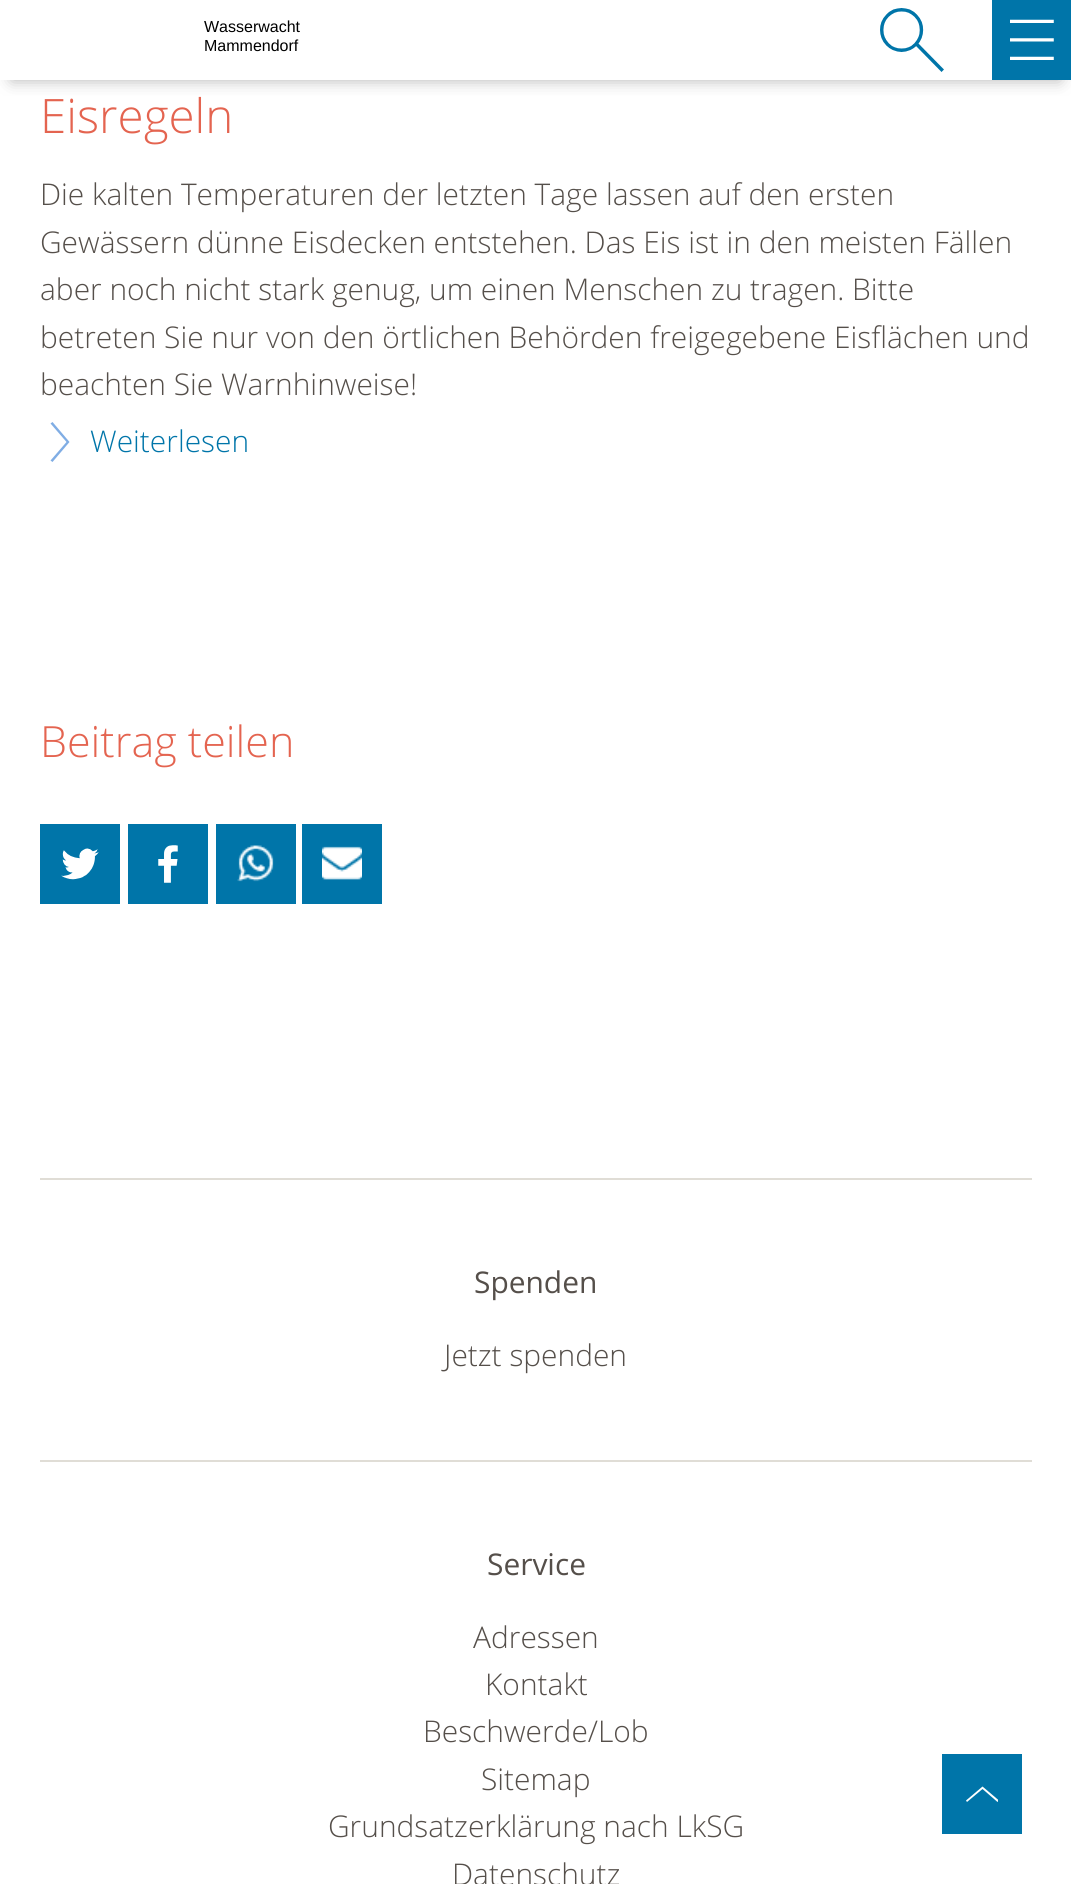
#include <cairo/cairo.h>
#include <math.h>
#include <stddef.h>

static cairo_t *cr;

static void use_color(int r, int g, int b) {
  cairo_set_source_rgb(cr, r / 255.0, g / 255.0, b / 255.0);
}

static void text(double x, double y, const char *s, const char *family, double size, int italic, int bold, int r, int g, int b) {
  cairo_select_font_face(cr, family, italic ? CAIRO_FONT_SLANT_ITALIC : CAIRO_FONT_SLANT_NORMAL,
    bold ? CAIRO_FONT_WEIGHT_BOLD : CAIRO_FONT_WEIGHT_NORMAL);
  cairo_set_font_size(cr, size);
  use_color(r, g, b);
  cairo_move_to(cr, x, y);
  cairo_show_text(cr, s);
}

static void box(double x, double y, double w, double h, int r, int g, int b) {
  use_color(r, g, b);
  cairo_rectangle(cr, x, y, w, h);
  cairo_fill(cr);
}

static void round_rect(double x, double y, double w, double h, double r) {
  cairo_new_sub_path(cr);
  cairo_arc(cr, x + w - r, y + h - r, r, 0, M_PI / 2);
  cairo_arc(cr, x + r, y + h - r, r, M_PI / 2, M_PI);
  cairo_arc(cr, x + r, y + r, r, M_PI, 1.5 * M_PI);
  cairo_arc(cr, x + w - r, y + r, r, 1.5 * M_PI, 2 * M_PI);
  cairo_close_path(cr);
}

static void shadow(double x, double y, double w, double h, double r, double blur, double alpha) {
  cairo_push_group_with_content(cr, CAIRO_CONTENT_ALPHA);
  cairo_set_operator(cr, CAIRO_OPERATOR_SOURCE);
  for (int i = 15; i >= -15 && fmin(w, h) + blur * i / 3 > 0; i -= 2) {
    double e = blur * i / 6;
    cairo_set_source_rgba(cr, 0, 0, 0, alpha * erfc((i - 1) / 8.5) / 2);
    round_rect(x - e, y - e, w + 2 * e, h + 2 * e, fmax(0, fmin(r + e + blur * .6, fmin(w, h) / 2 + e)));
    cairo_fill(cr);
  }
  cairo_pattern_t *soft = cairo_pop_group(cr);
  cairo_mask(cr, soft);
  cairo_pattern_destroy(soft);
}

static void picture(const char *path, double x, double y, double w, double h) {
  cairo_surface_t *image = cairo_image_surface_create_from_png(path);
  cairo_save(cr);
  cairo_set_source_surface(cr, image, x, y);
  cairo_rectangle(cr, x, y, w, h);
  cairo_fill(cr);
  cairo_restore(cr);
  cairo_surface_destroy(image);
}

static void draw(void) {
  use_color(255, 255, 255);
  cairo_paint(cr);
  cairo_save(cr);
  cairo_rectangle(cr, 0, 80, 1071, 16);
  cairo_clip(cr);
  use_color(180, 180, 180);
  shadow(12, 24, 1048, 56, 0, 8, 1);
  cairo_restore(cr);
  box(992, 0, 79, 80, 0, 117, 169);
  picture("img_01.png", 1010, 19, 44, 41);
  picture("img_02.png", 880, 8, 64, 64);
  use_color(128, 173, 228);
  cairo_new_path(cr);
  cairo_move_to(cr, 52.5, 462);
  cairo_line_to(cr, 50.5, 460.5);
  cairo_line_to(cr, 66.5, 442);
  cairo_line_to(cr, 50.5, 423.5);
  cairo_line_to(cr, 52.5, 422);
  cairo_line_to(cr, 69.5, 442);
  cairo_close_path(cr);
  cairo_fill(cr);
  box(40, 824, 80, 80, 0, 117, 169);
  picture("img_03.png", 61, 848, 38, 32);
  box(128, 824, 80, 80, 0, 117, 169);
  picture("img_04.png", 158, 845, 20, 38);
  box(216, 824, 80, 80, 0, 117, 169);
  picture("img_05.png", 237, 845, 37, 37);
  box(302, 824, 80, 80, 0, 117, 169);
  picture("img_06.png", 322, 846, 40, 34);
  box(40, 1178, 992, 2, 224, 221, 214);
  box(40, 1460, 992, 2, 224, 221, 214);
  box(942, 1754, 80, 80, 0, 117, 169);
  cairo_save(cr);
  cairo_rectangle(cr, 966, 1778, 32, 32);
  cairo_clip(cr);
  use_color(255, 255, 255);
  cairo_new_path(cr);
  cairo_move_to(cr, 999, 1800.5);
  cairo_line_to(cr, 997.5, 1802);
  cairo_line_to(cr, 982.5, 1789);
  cairo_line_to(cr, 967, 1802);
  cairo_line_to(cr, 966, 1800.5);
  cairo_line_to(cr, 982.5, 1786.5);
  cairo_close_path(cr);
  cairo_fill(cr);
  cairo_restore(cr);
  text(204, 32, "Wasserwacht", "Liberation Sans", 16, 0, 0, 0, 0, 0);
  text(204, 51, "Mammendorf", "Liberation Sans", 16, 0, 0, 0, 0, 0);
  text(40, 133, "Eisregeln", "Open Sans Light", 47.5, 0, 0, 228, 100, 80);
  text(40, 205, "Die kalten Temperaturen der letzten Tage lassen auf den ersten", "Open Sans Light", 29.9, 0, 0, 85, 79, 74);
  text(40, 253, "Gewässern dünne Eisdecken entstehen. Das Eis ist in den meisten Fällen", "Open Sans Light", 29.9, 0, 0, 85, 79, 74);
  text(40, 300, "aber noch nicht stark genug, um einen Menschen zu tragen. Bitte", "Open Sans Light", 29.9, 0, 0, 85, 79, 74);
  text(40, 348, "betreten Sie nur von den örtlichen Behörden freigegebene Eisflächen und", "Open Sans Light", 29.9, 0, 0, 85, 79, 74);
  text(40, 395, "beachten Sie Warnhinweise!", "Open Sans Light", 29.9, 0, 0, 85, 79, 74);
  text(90, 452, "Weiterlesen", "Open Sans Light", 29.9, 0, 0, 0, 117, 169);
  text(40, 757, "Beitrag teilen", "Open Sans Light", 43, 0, 0, 228, 100, 80);
  text(474, 1293, "Spenden", "Open Sans", 29.9, 0, 0, 85, 79, 74);
  text(444, 1366, "Jetzt spenden", "Open Sans Light", 29.9, 0, 0, 85, 79, 74);
  text(487, 1575, "Service", "Open Sans", 29.9, 0, 0, 85, 79, 74);
  text(473, 1648, "Adressen", "Open Sans Light", 29.9, 0, 0, 85, 79, 74);
  text(485, 1695, "Kontakt", "Open Sans Light", 29.9, 0, 0, 85, 79, 74);
  text(423, 1742, "Beschwerde/Lob", "Open Sans Light", 29.9, 0, 0, 85, 79, 74);
  text(481, 1790, "Sitemap", "Open Sans Light", 29.9, 0, 0, 85, 79, 74);
  text(328, 1837, "Grundsatzerklärung nach LkSG", "Open Sans Light", 29.9, 0, 0, 85, 79, 74);
  text(452, 1885, "Datenschutz", "Open Sans Light", 29.9, 0, 0, 85, 79, 74);
}

int main(void) {
  cairo_surface_t *surface = cairo_image_surface_create(CAIRO_FORMAT_RGB24, 1071, 1884);
  cr = cairo_create(surface);
  cairo_font_options_t *options = cairo_font_options_create();
  cairo_font_options_set_hint_metrics(options, CAIRO_HINT_METRICS_OFF);
  cairo_font_options_set_hint_style(options, CAIRO_HINT_STYLE_NONE);
  cairo_set_font_options(cr, options);
  cairo_set_miter_limit(cr, 4);
  draw();
  cairo_surface_write_to_png(surface, "out.png");
  cairo_font_options_destroy(options);
  cairo_destroy(cr);
  cairo_surface_destroy(surface);
  return 0;
}
